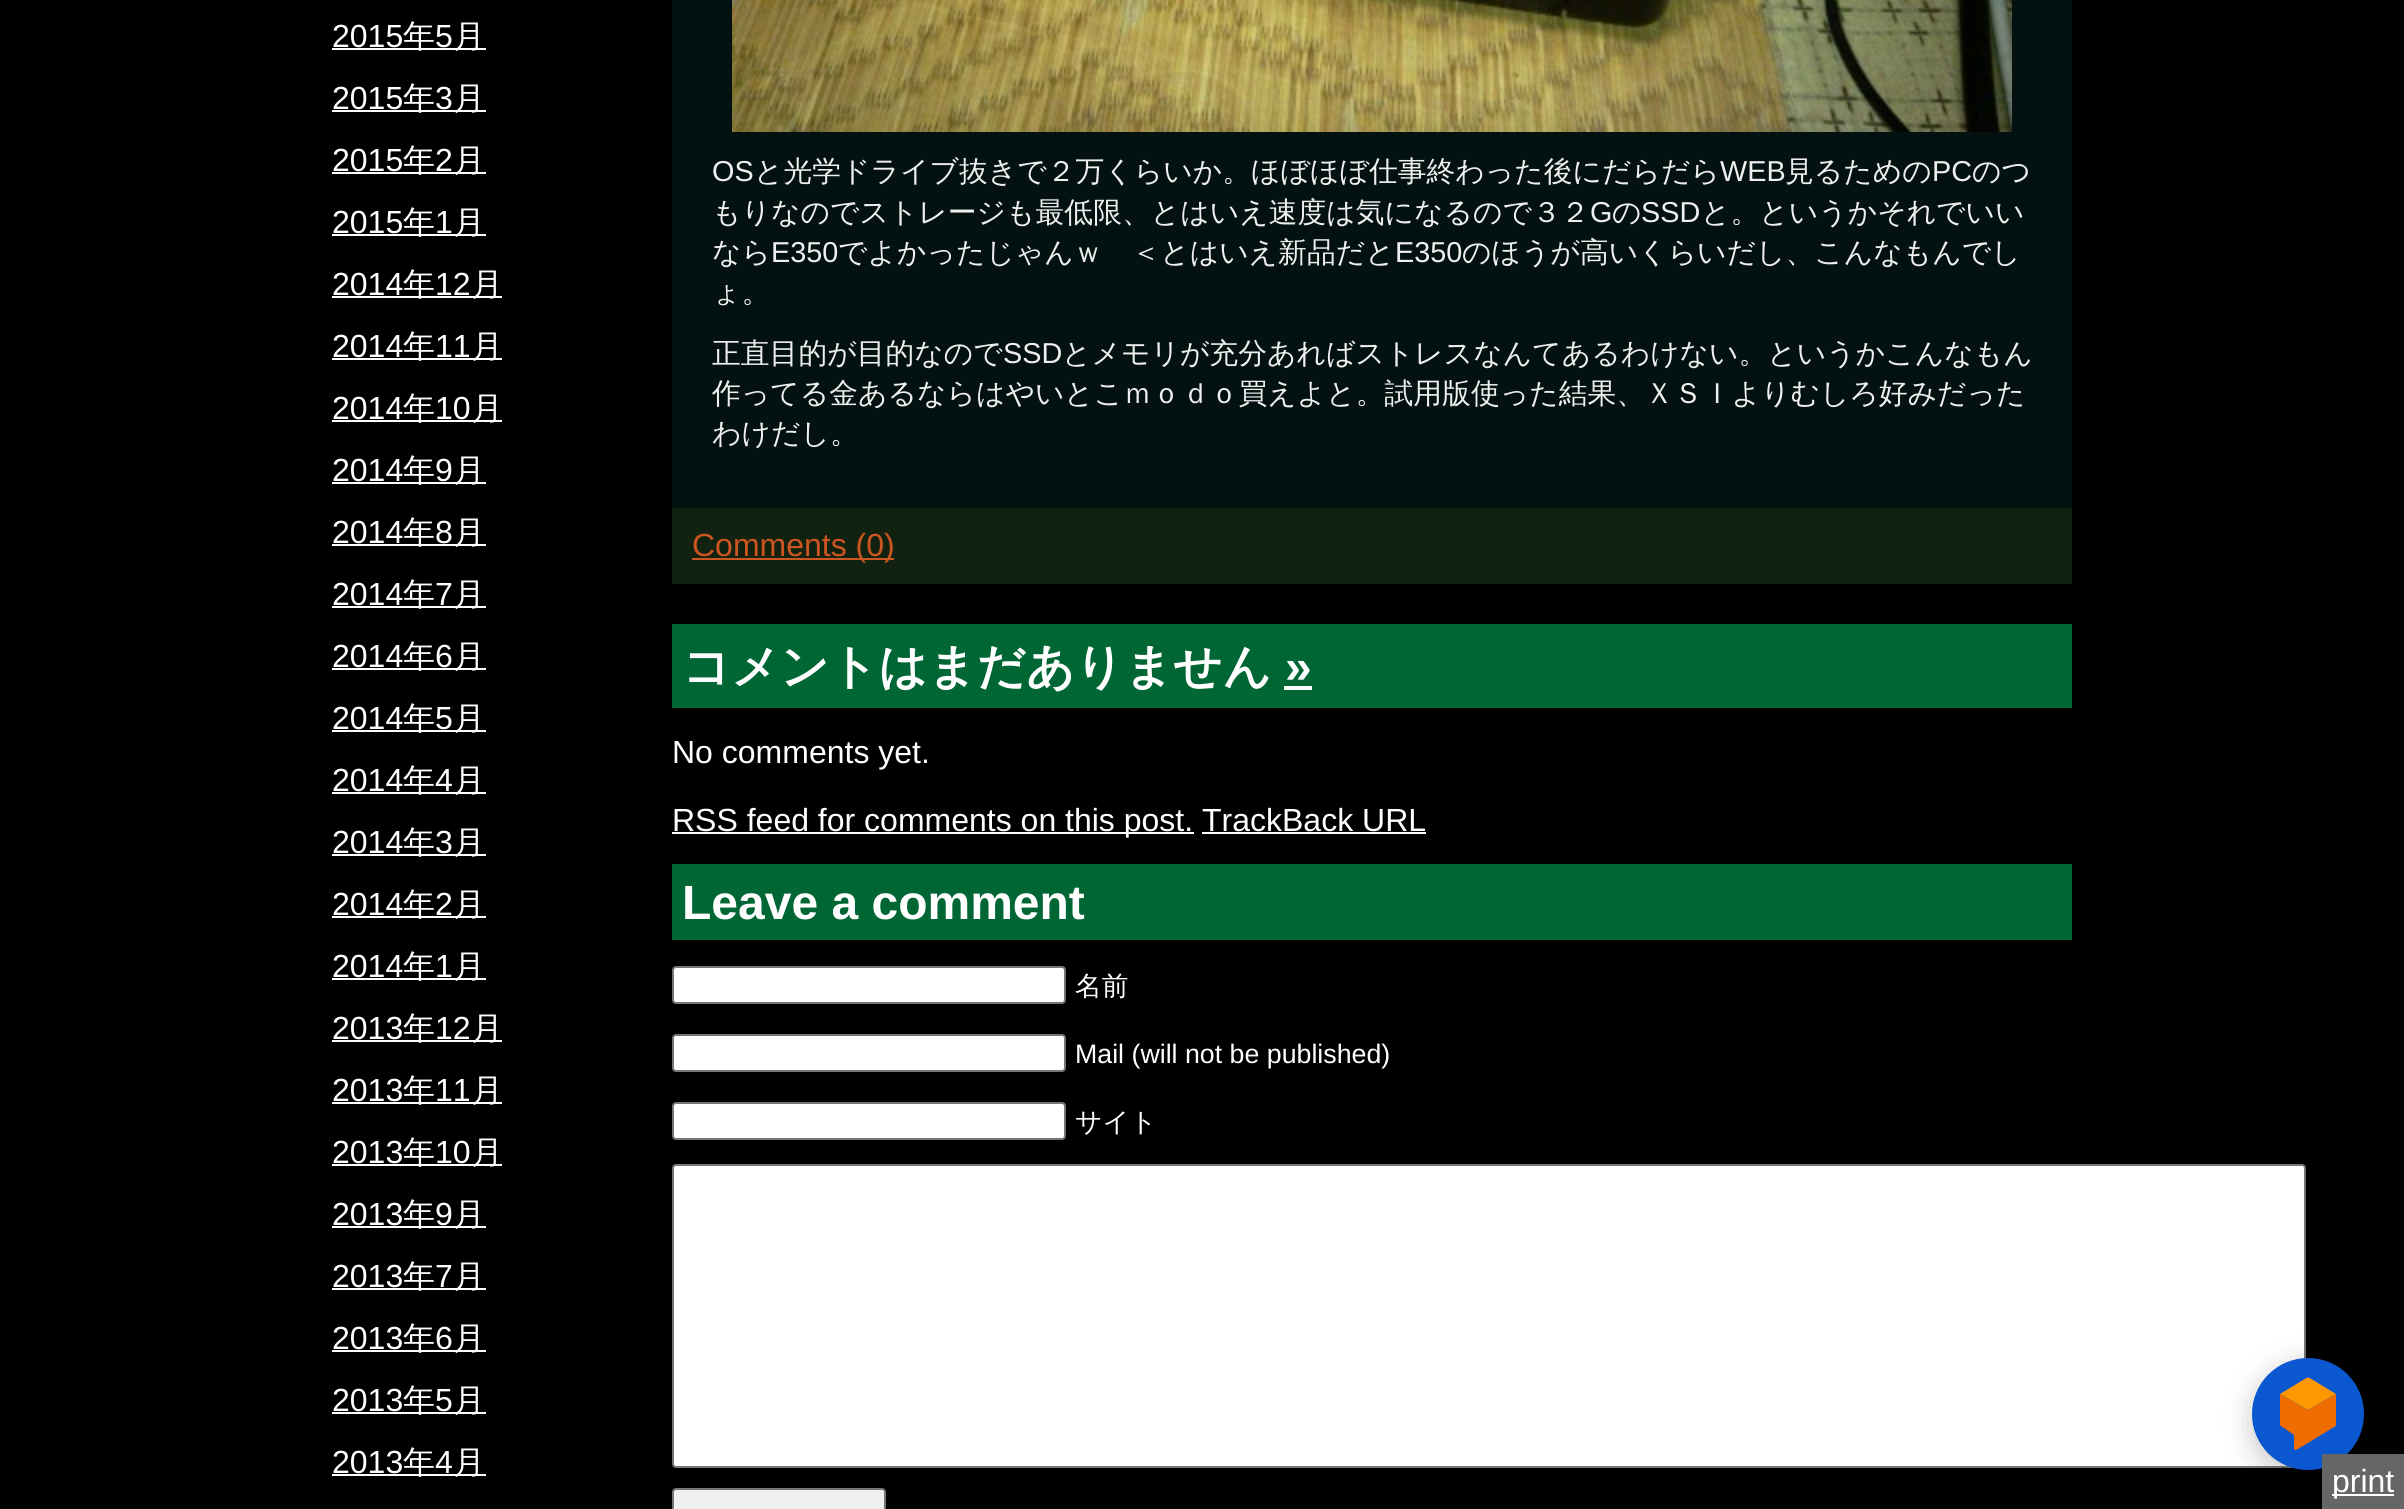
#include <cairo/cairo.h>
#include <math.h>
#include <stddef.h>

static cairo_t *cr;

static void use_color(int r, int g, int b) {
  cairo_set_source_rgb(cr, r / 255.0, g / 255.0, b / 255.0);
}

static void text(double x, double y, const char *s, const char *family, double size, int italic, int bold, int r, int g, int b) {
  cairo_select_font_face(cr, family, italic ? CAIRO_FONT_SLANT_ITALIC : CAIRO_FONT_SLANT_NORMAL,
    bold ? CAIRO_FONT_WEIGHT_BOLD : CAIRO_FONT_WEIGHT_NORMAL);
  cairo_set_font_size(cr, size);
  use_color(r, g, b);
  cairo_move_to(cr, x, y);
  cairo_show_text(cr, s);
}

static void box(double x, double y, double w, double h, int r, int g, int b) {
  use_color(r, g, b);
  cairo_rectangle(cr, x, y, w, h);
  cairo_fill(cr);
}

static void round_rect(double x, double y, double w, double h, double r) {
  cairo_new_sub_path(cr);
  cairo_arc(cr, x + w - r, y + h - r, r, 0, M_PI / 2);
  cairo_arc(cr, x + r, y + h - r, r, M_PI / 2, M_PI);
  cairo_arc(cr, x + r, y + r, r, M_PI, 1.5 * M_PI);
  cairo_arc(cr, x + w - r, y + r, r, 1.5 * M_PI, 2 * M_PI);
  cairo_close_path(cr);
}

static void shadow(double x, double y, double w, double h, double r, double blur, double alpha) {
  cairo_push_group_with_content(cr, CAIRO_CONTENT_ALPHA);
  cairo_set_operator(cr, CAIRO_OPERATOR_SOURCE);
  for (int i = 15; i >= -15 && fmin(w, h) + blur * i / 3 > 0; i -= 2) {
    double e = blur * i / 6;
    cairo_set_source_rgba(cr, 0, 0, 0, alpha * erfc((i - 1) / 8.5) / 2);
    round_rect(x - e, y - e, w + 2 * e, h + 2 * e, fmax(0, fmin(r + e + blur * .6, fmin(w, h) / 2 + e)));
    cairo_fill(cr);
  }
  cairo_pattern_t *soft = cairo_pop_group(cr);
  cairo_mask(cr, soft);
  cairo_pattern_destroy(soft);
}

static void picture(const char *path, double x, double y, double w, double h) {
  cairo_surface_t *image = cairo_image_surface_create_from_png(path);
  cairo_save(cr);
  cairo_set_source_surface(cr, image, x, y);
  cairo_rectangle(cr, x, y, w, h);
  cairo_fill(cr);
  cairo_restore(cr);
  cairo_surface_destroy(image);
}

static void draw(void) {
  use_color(0, 0, 0);
  cairo_paint(cr);
  box(332, 48, 154, 2, 255, 255, 255);
  box(332, 110, 154, 2, 255, 255, 255);
  box(332, 172, 154, 2, 255, 255, 255);
  box(332, 234, 154, 2, 255, 255, 255);
  box(332, 296, 170, 2, 255, 255, 255);
  box(332, 358, 170, 2, 255, 255, 255);
  box(332, 420, 170, 2, 255, 255, 255);
  box(332, 482, 154, 2, 255, 255, 255);
  box(332, 544, 154, 2, 255, 255, 255);
  box(332, 606, 154, 2, 255, 255, 255);
  box(332, 668, 154, 2, 255, 255, 255);
  box(332, 730, 154, 2, 255, 255, 255);
  box(332, 792, 154, 2, 255, 255, 255);
  box(332, 854, 154, 2, 255, 255, 255);
  box(332, 916, 154, 2, 255, 255, 255);
  box(332, 978, 154, 2, 255, 255, 255);
  box(332, 1040, 170, 2, 255, 255, 255);
  box(332, 1102, 170, 2, 255, 255, 255);
  box(332, 1164, 170, 2, 255, 255, 255);
  box(332, 1226, 154, 2, 255, 255, 255);
  box(332, 1288, 154, 2, 255, 255, 255);
  box(332, 1350, 154, 2, 255, 255, 255);
  box(332, 1412, 154, 2, 255, 255, 255);
  box(332, 1474, 154, 2, 255, 255, 255);
  box(672, 0, 1400, 508, 3, 18, 17);
  picture("img_01.png", 732, 0, 1280, 132);
  box(672, 508, 1400, 76, 17, 34, 17);
  box(692, 558, 202, 2, 204, 85, 34);
  box(672, 624, 1400, 84, 0, 102, 51);
  box(1284, 686, 28, 4, 255, 255, 255);
  box(672, 832, 522, 2, 255, 255, 255);
  box(1202, 832, 224, 2, 255, 255, 255);
  box(672, 864, 1400, 76, 0, 102, 51);
  use_color(255, 255, 255);
  round_rect(673, 967, 392, 36, 3);
  cairo_fill_preserve(cr);
  use_color(118, 118, 118);
  cairo_stroke(cr);
  use_color(255, 255, 255);
  round_rect(673, 1035, 392, 36, 3);
  cairo_fill_preserve(cr);
  use_color(118, 118, 118);
  cairo_stroke(cr);
  use_color(255, 255, 255);
  round_rect(673, 1103, 392, 36, 3);
  cairo_fill_preserve(cr);
  use_color(118, 118, 118);
  cairo_stroke(cr);
  use_color(255, 255, 255);
  round_rect(673, 1165, 1632, 302, 3);
  cairo_fill_preserve(cr);
  use_color(118, 118, 118);
  cairo_stroke(cr);
  use_color(239, 239, 239);
  round_rect(673, 1489, 212, 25, 3);
  cairo_fill_preserve(cr);
  use_color(118, 118, 118);
  cairo_stroke(cr);
  use_color(0, 0, 0);
  shadow(2254, 1366, 112, 112, 56, 15, 0.24);
  use_color(11, 87, 208);
  cairo_arc(cr, 2308, 1414, 56, 0, 2 * M_PI);
  cairo_fill(cr);
  use_color(239, 108, 0);
  cairo_new_path(cr);
  cairo_move_to(cr, 2336, 1394);
  cairo_line_to(cr, 2308, 1410);
  cairo_line_to(cr, 2280, 1394);
  cairo_line_to(cr, 2280, 1420);
  cairo_curve_to(cr, 2280, 1427, 2279, 1425, 2284, 1428);
  cairo_line_to(cr, 2294, 1435);
  cairo_line_to(cr, 2294, 1449);
  cairo_curve_to(cr, 2295, 1452, 2300, 1447, 2303, 1446);
  cairo_line_to(cr, 2329, 1430);
  cairo_curve_to(cr, 2337, 1425, 2336, 1428, 2336, 1420);
  cairo_close_path(cr);
  cairo_fill(cr);
  use_color(255, 152, 0);
  cairo_new_path(cr);
  cairo_move_to(cr, 2336, 1394);
  cairo_line_to(cr, 2308, 1410);
  cairo_line_to(cr, 2280, 1394);
  cairo_line_to(cr, 2303, 1380);
  cairo_curve_to(cr, 2308, 1377, 2308, 1377, 2313, 1380);
  cairo_close_path(cr);
  cairo_fill(cr);
  cairo_set_source_rgba(cr, 0.749, 0.212, 0.047, 0.1);
  cairo_new_path(cr);
  cairo_move_to(cr, 2335, 1393);
  cairo_line_to(cr, 2307, 1410);
  cairo_line_to(cr, 2280, 1394);
  cairo_line_to(cr, 2307, 1410);
  cairo_line_to(cr, 2308, 1410);
  cairo_line_to(cr, 2336, 1394);
  cairo_close_path(cr);
  cairo_fill(cr);
  box(2322, 1454, 82, 55, 102, 102, 102);
  box(2332, 1494, 62, 2, 255, 255, 255);
  text(332, 47, "2015", "Liberation Sans", 32, 0, 0, 255, 255, 255);
  text(403, 47, "年", "WenQuanYi Zen Hei Medium", 32, 0, 0, 255, 255, 255);
  text(435, 47, "5", "Liberation Sans", 32, 0, 0, 255, 255, 255);
  text(453, 47, "月", "WenQuanYi Zen Hei Medium", 32, 0, 0, 255, 255, 255);
  text(332, 109, "2015", "Liberation Sans", 32, 0, 0, 255, 255, 255);
  text(403, 109, "年", "WenQuanYi Zen Hei Medium", 32, 0, 0, 255, 255, 255);
  text(435, 109, "3", "Liberation Sans", 32, 0, 0, 255, 255, 255);
  text(453, 109, "月", "WenQuanYi Zen Hei Medium", 32, 0, 0, 255, 255, 255);
  text(332, 171, "2015", "Liberation Sans", 32, 0, 0, 255, 255, 255);
  text(403, 171, "年", "WenQuanYi Zen Hei Medium", 32, 0, 0, 255, 255, 255);
  text(435, 171, "2", "Liberation Sans", 32, 0, 0, 255, 255, 255);
  text(453, 171, "月", "WenQuanYi Zen Hei Medium", 32, 0, 0, 255, 255, 255);
  text(332, 233, "2015", "Liberation Sans", 32, 0, 0, 255, 255, 255);
  text(403, 233, "年", "WenQuanYi Zen Hei Medium", 32, 0, 0, 255, 255, 255);
  text(435, 233, "1", "Liberation Sans", 32, 0, 0, 255, 255, 255);
  text(453, 233, "月", "WenQuanYi Zen Hei Medium", 32, 0, 0, 255, 255, 255);
  text(332, 295, "2014", "Liberation Sans", 32, 0, 0, 255, 255, 255);
  text(403, 295, "年", "WenQuanYi Zen Hei Medium", 32, 0, 0, 255, 255, 255);
  text(435, 295, "12", "Liberation Sans", 32, 0, 0, 255, 255, 255);
  text(471, 295, "月", "WenQuanYi Zen Hei Medium", 32, 0, 0, 255, 255, 255);
  text(332, 357, "2014", "Liberation Sans", 32, 0, 0, 255, 255, 255);
  text(403, 357, "年", "WenQuanYi Zen Hei Medium", 32, 0, 0, 255, 255, 255);
  text(435, 357, "11", "Liberation Sans", 32, 0, 0, 255, 255, 255);
  text(471, 357, "月", "WenQuanYi Zen Hei Medium", 32, 0, 0, 255, 255, 255);
  text(332, 419, "2014", "Liberation Sans", 32, 0, 0, 255, 255, 255);
  text(403, 419, "年", "WenQuanYi Zen Hei Medium", 32, 0, 0, 255, 255, 255);
  text(435, 419, "10", "Liberation Sans", 32, 0, 0, 255, 255, 255);
  text(471, 419, "月", "WenQuanYi Zen Hei Medium", 32, 0, 0, 255, 255, 255);
  text(332, 481, "2014", "Liberation Sans", 32, 0, 0, 255, 255, 255);
  text(403, 481, "年", "WenQuanYi Zen Hei Medium", 32, 0, 0, 255, 255, 255);
  text(435, 481, "9", "Liberation Sans", 32, 0, 0, 255, 255, 255);
  text(453, 481, "月", "WenQuanYi Zen Hei Medium", 32, 0, 0, 255, 255, 255);
  text(332, 543, "2014", "Liberation Sans", 32, 0, 0, 255, 255, 255);
  text(403, 543, "年", "WenQuanYi Zen Hei Medium", 32, 0, 0, 255, 255, 255);
  text(435, 543, "8", "Liberation Sans", 32, 0, 0, 255, 255, 255);
  text(453, 543, "月", "WenQuanYi Zen Hei Medium", 32, 0, 0, 255, 255, 255);
  text(332, 605, "2014", "Liberation Sans", 32, 0, 0, 255, 255, 255);
  text(403, 605, "年", "WenQuanYi Zen Hei Medium", 32, 0, 0, 255, 255, 255);
  text(435, 605, "7", "Liberation Sans", 32, 0, 0, 255, 255, 255);
  text(453, 605, "月", "WenQuanYi Zen Hei Medium", 32, 0, 0, 255, 255, 255);
  text(332, 667, "2014", "Liberation Sans", 32, 0, 0, 255, 255, 255);
  text(403, 667, "年", "WenQuanYi Zen Hei Medium", 32, 0, 0, 255, 255, 255);
  text(435, 667, "6", "Liberation Sans", 32, 0, 0, 255, 255, 255);
  text(453, 667, "月", "WenQuanYi Zen Hei Medium", 32, 0, 0, 255, 255, 255);
  text(332, 729, "2014", "Liberation Sans", 32, 0, 0, 255, 255, 255);
  text(403, 729, "年", "WenQuanYi Zen Hei Medium", 32, 0, 0, 255, 255, 255);
  text(435, 729, "5", "Liberation Sans", 32, 0, 0, 255, 255, 255);
  text(453, 729, "月", "WenQuanYi Zen Hei Medium", 32, 0, 0, 255, 255, 255);
  text(332, 791, "2014", "Liberation Sans", 32, 0, 0, 255, 255, 255);
  text(403, 791, "年", "WenQuanYi Zen Hei Medium", 32, 0, 0, 255, 255, 255);
  text(435, 791, "4", "Liberation Sans", 32, 0, 0, 255, 255, 255);
  text(453, 791, "月", "WenQuanYi Zen Hei Medium", 32, 0, 0, 255, 255, 255);
  text(332, 853, "2014", "Liberation Sans", 32, 0, 0, 255, 255, 255);
  text(403, 853, "年", "WenQuanYi Zen Hei Medium", 32, 0, 0, 255, 255, 255);
  text(435, 853, "3", "Liberation Sans", 32, 0, 0, 255, 255, 255);
  text(453, 853, "月", "WenQuanYi Zen Hei Medium", 32, 0, 0, 255, 255, 255);
  text(332, 915, "2014", "Liberation Sans", 32, 0, 0, 255, 255, 255);
  text(403, 915, "年", "WenQuanYi Zen Hei Medium", 32, 0, 0, 255, 255, 255);
  text(435, 915, "2", "Liberation Sans", 32, 0, 0, 255, 255, 255);
  text(453, 915, "月", "WenQuanYi Zen Hei Medium", 32, 0, 0, 255, 255, 255);
  text(332, 977, "2014", "Liberation Sans", 32, 0, 0, 255, 255, 255);
  text(403, 977, "年", "WenQuanYi Zen Hei Medium", 32, 0, 0, 255, 255, 255);
  text(435, 977, "1", "Liberation Sans", 32, 0, 0, 255, 255, 255);
  text(453, 977, "月", "WenQuanYi Zen Hei Medium", 32, 0, 0, 255, 255, 255);
  text(332, 1039, "2013", "Liberation Sans", 32, 0, 0, 255, 255, 255);
  text(403, 1039, "年", "WenQuanYi Zen Hei Medium", 32, 0, 0, 255, 255, 255);
  text(435, 1039, "12", "Liberation Sans", 32, 0, 0, 255, 255, 255);
  text(471, 1039, "月", "WenQuanYi Zen Hei Medium", 32, 0, 0, 255, 255, 255);
  text(332, 1101, "2013", "Liberation Sans", 32, 0, 0, 255, 255, 255);
  text(403, 1101, "年", "WenQuanYi Zen Hei Medium", 32, 0, 0, 255, 255, 255);
  text(435, 1101, "11", "Liberation Sans", 32, 0, 0, 255, 255, 255);
  text(471, 1101, "月", "WenQuanYi Zen Hei Medium", 32, 0, 0, 255, 255, 255);
  text(332, 1163, "2013", "Liberation Sans", 32, 0, 0, 255, 255, 255);
  text(403, 1163, "年", "WenQuanYi Zen Hei Medium", 32, 0, 0, 255, 255, 255);
  text(435, 1163, "10", "Liberation Sans", 32, 0, 0, 255, 255, 255);
  text(471, 1163, "月", "WenQuanYi Zen Hei Medium", 32, 0, 0, 255, 255, 255);
  text(332, 1225, "2013", "Liberation Sans", 32, 0, 0, 255, 255, 255);
  text(403, 1225, "年", "WenQuanYi Zen Hei Medium", 32, 0, 0, 255, 255, 255);
  text(435, 1225, "9", "Liberation Sans", 32, 0, 0, 255, 255, 255);
  text(453, 1225, "月", "WenQuanYi Zen Hei Medium", 32, 0, 0, 255, 255, 255);
  text(332, 1287, "2013", "Liberation Sans", 32, 0, 0, 255, 255, 255);
  text(403, 1287, "年", "WenQuanYi Zen Hei Medium", 32, 0, 0, 255, 255, 255);
  text(435, 1287, "7", "Liberation Sans", 32, 0, 0, 255, 255, 255);
  text(453, 1287, "月", "WenQuanYi Zen Hei Medium", 32, 0, 0, 255, 255, 255);
  text(332, 1349, "2013", "Liberation Sans", 32, 0, 0, 255, 255, 255);
  text(403, 1349, "年", "WenQuanYi Zen Hei Medium", 32, 0, 0, 255, 255, 255);
  text(435, 1349, "6", "Liberation Sans", 32, 0, 0, 255, 255, 255);
  text(453, 1349, "月", "WenQuanYi Zen Hei Medium", 32, 0, 0, 255, 255, 255);
  text(332, 1411, "2013", "Liberation Sans", 32, 0, 0, 255, 255, 255);
  text(403, 1411, "年", "WenQuanYi Zen Hei Medium", 32, 0, 0, 255, 255, 255);
  text(435, 1411, "5", "Liberation Sans", 32, 0, 0, 255, 255, 255);
  text(453, 1411, "月", "WenQuanYi Zen Hei Medium", 32, 0, 0, 255, 255, 255);
  text(332, 1473, "2013", "Liberation Sans", 32, 0, 0, 255, 255, 255);
  text(403, 1473, "年", "WenQuanYi Zen Hei Medium", 32, 0, 0, 255, 255, 255);
  text(435, 1473, "4", "Liberation Sans", 32, 0, 0, 255, 255, 255);
  text(453, 1473, "月", "WenQuanYi Zen Hei Medium", 32, 0, 0, 255, 255, 255);
  text(712, 181, "OS", "Liberation Sans", 28.8, 0, 0, 239, 239, 239);
  text(754, 181, "と光学ドライブ抜きで２万くらいか。ほぼほぼ仕事終わった後にだらだら", "WenQuanYi Zen Hei Medium", 28.8, 0, 0, 239, 239, 239);
  text(1720, 181, "WEB", "Liberation Sans", 28.8, 0, 0, 239, 239, 239);
  text(1785, 181, "見るための", "WenQuanYi Zen Hei Medium", 28.8, 0, 0, 239, 239, 239);
  text(1932, 181, "PC", "Liberation Sans", 28.8, 0, 0, 239, 239, 239);
  text(1972, 181, "のつ", "WenQuanYi Zen Hei Medium", 28.8, 0, 0, 239, 239, 239);
  text(712, 222, "もりなのでストレージも最低限、とはいえ速度は気になるので３２", "WenQuanYi Zen Hei Medium", 28.8, 0, 0, 239, 239, 239);
  text(1590, 222, "G", "Liberation Sans", 28.8, 0, 0, 239, 239, 239);
  text(1612, 222, "の", "WenQuanYi Zen Hei Medium", 28.8, 0, 0, 239, 239, 239);
  text(1641, 222, "SSD", "Liberation Sans", 28.8, 0, 0, 239, 239, 239);
  text(1701, 222, "と。というかそれでいい", "WenQuanYi Zen Hei Medium", 28.8, 0, 0, 239, 239, 239);
  text(712, 262, "なら", "WenQuanYi Zen Hei Medium", 28.8, 0, 0, 239, 239, 239);
  text(771, 262, "E350", "Liberation Sans", 28.8, 0, 0, 239, 239, 239);
  text(838, 262, "でよかったじゃんｗ　＜とはいえ新品だと", "WenQuanYi Zen Hei Medium", 28.8, 0, 0, 239, 239, 239);
  text(1395, 262, "E350", "Liberation Sans", 28.8, 0, 0, 239, 239, 239);
  text(1462, 262, "のほうが高いくらいだし、こんなもんでし", "WenQuanYi Zen Hei Medium", 28.8, 0, 0, 239, 239, 239);
  text(712, 302, "ょ。", "WenQuanYi Zen Hei Medium", 28.8, 0, 0, 239, 239, 239);
  text(712, 363, "正直目的が目的なので", "WenQuanYi Zen Hei Medium", 28.8, 0, 0, 239, 239, 239);
  text(1003, 363, "SSD", "Liberation Sans", 28.8, 0, 0, 239, 239, 239);
  text(1062, 363, "とメモリが充分あればストレスなんてあるわけない。というかこんなもん", "WenQuanYi Zen Hei Medium", 28.8, 0, 0, 239, 239, 239);
  text(712, 403, "作ってる金あるならはやいとこｍｏｄｏ買えよと。試用版使った結果、ＸＳＩよりむしろ好みだった", "WenQuanYi Zen Hei Medium", 28.8, 0, 0, 239, 239, 239);
  text(712, 443, "わけだし。", "WenQuanYi Zen Hei Medium", 28.8, 0, 0, 239, 239, 239);
  text(692, 556, "Comments (0)", "Liberation Sans", 32, 0, 0, 204, 85, 34);
  text(682, 683, "コメントはまだありません", "WenQuanYi Zen Hei", 48, 0, 1, 255, 255, 255);
  text(1285, 683, "»", "Liberation Sans", 48, 0, 1, 255, 255, 255);
  text(672, 763, "No comments yet.", "Liberation Sans", 32, 0, 0, 255, 255, 255);
  text(672, 831, "RSS feed for comments on this post. TrackBack URL", "Liberation Sans", 32, 0, 0, 255, 255, 255);
  text(682, 919, "Leave a comment", "Liberation Sans", 48, 0, 1, 255, 255, 255);
  text(1075, 995, "名前", "WenQuanYi Zen Hei Medium", 26.75, 0, 0, 255, 255, 255);
  text(1075, 1063, "Mail (will not be published)", "Liberation Sans", 26.75, 0, 0, 255, 255, 255);
  text(1075, 1131, "サイト", "WenQuanYi Zen Hei Medium", 26.75, 0, 0, 255, 255, 255);
  text(2332, 1492, "print", "Liberation Sans", 32, 0, 0, 255, 255, 255);
}

int main(void) {
  cairo_surface_t *surface = cairo_image_surface_create(CAIRO_FORMAT_RGB24, 2404, 1509);
  cr = cairo_create(surface);
  cairo_font_options_t *options = cairo_font_options_create();
  cairo_font_options_set_hint_metrics(options, CAIRO_HINT_METRICS_OFF);
  cairo_font_options_set_hint_style(options, CAIRO_HINT_STYLE_NONE);
  cairo_set_font_options(cr, options);
  cairo_set_miter_limit(cr, 4);
  draw();
  cairo_surface_write_to_png(surface, "out.png");
  cairo_font_options_destroy(options);
  cairo_destroy(cr);
  cairo_surface_destroy(surface);
  return 0;
}
